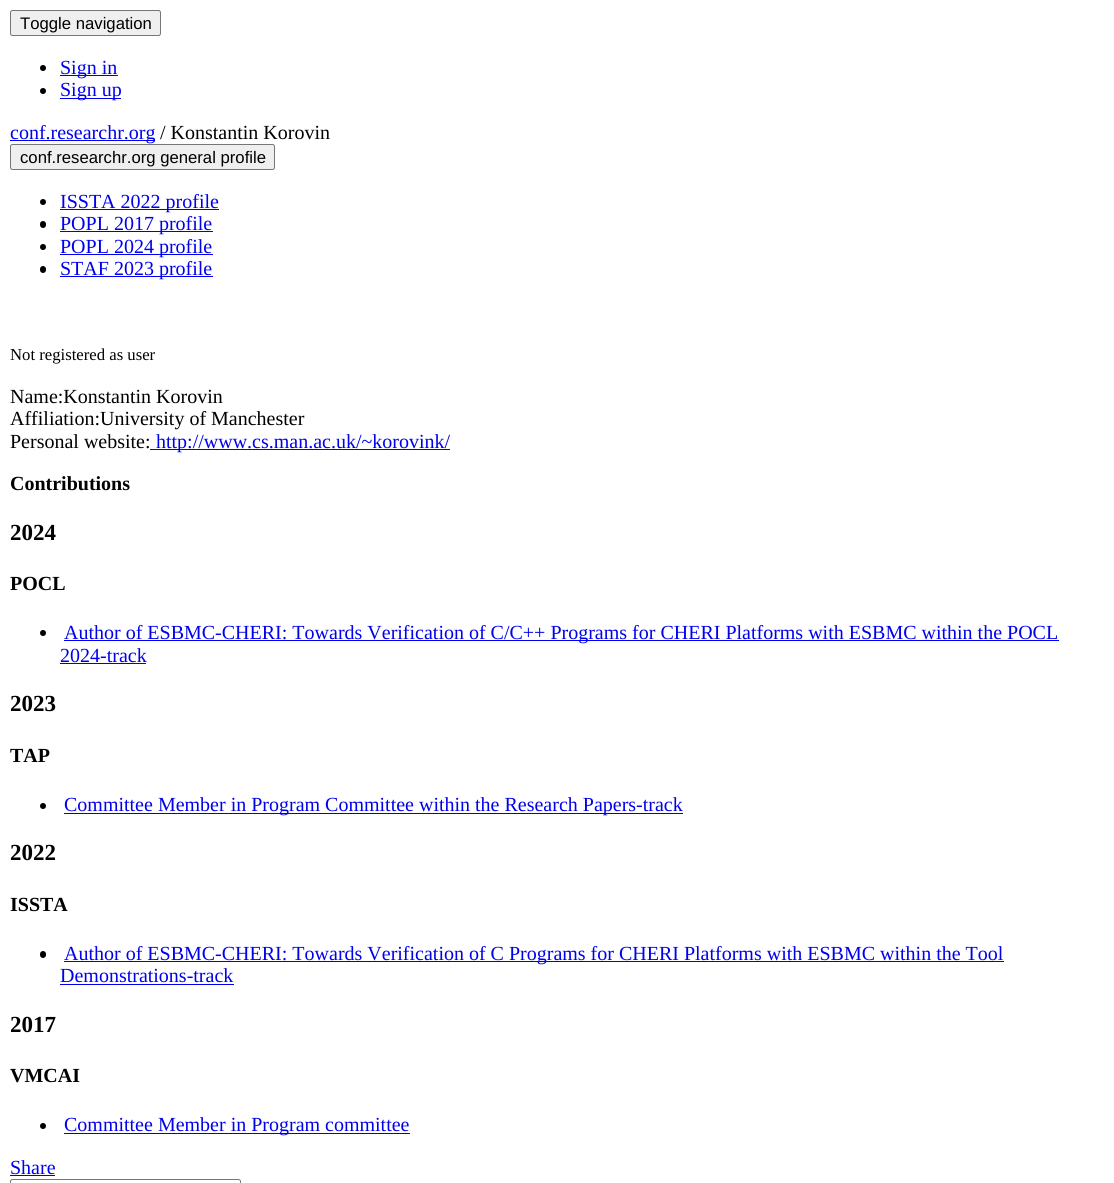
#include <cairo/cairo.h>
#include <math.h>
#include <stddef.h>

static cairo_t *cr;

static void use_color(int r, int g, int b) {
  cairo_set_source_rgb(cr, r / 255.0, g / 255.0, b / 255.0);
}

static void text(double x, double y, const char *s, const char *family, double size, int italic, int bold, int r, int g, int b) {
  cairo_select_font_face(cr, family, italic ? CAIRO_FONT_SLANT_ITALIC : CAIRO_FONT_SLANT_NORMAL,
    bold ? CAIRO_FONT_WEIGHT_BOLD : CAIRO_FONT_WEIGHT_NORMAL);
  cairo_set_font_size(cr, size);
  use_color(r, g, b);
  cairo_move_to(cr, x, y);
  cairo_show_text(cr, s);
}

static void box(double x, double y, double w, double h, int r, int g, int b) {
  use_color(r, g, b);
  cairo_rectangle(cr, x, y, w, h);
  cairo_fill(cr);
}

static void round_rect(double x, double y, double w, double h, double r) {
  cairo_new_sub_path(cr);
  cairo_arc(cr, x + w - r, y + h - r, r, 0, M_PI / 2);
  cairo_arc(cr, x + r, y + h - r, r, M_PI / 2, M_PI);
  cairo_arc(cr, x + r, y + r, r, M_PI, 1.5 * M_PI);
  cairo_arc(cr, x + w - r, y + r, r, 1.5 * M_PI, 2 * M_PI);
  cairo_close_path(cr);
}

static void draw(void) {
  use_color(255, 255, 255);
  cairo_paint(cr);
  use_color(239, 239, 239);
  round_rect(10.5, 10.5, 150, 25, 2);
  cairo_fill_preserve(cr);
  use_color(118, 118, 118);
  cairo_set_line_width(cr, 1);
  cairo_stroke(cr);
  use_color(0, 0, 0);
  cairo_arc(cr, 43, 68, 3, 0, 2 * M_PI);
  cairo_fill(cr);
  box(60, 75, 58, 1, 0, 0, 238);
  use_color(0, 0, 0);
  cairo_arc(cr, 43, 91, 3, 0, 2 * M_PI);
  cairo_fill(cr);
  box(60, 98, 61, 1, 0, 0, 238);
  box(10, 140, 145, 1, 0, 0, 238);
  use_color(239, 239, 239);
  round_rect(10.5, 144.5, 264, 25, 2);
  cairo_fill_preserve(cr);
  use_color(118, 118, 118);
  cairo_stroke(cr);
  use_color(0, 0, 0);
  cairo_arc(cr, 43, 202, 3, 0, 2 * M_PI);
  cairo_fill(cr);
  box(60, 209, 159, 1, 0, 0, 238);
  use_color(0, 0, 0);
  round_rect(40, 221, 6, 7, 3);
  cairo_fill(cr);
  box(60, 231, 153, 1, 0, 0, 238);
  use_color(0, 0, 0);
  cairo_arc(cr, 43, 247, 3, 0, 2 * M_PI);
  cairo_fill(cr);
  box(60, 254, 153, 1, 0, 0, 238);
  use_color(0, 0, 0);
  round_rect(40, 266, 6, 7, 3);
  cairo_fill(cr);
  box(60, 276, 153, 1, 0, 0, 238);
  box(150, 449, 300, 1, 0, 0, 238);
  use_color(0, 0, 0);
  cairo_arc(cr, 43, 633, 3, 0, 2 * M_PI);
  cairo_fill(cr);
  box(64, 640, 995, 1, 0, 0, 238);
  box(60, 663, 86, 1, 0, 0, 238);
  use_color(0, 0, 0);
  cairo_arc(cr, 43, 806, 3, 0, 2 * M_PI);
  cairo_fill(cr);
  box(64, 813, 619, 1, 0, 0, 238);
  use_color(0, 0, 0);
  round_rect(40, 951, 6, 7, 3);
  cairo_fill(cr);
  box(64, 961, 940, 1, 0, 0, 238);
  box(60, 984, 174, 1, 0, 0, 238);
  use_color(0, 0, 0);
  cairo_arc(cr, 43, 1126, 3, 0, 2 * M_PI);
  cairo_fill(cr);
  box(64, 1133, 346, 1, 0, 0, 238);
  box(10, 1175, 45, 1, 0, 0, 238);
  round_rect(10.5, 1179.5, 230, 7, 2);
  use_color(118, 118, 118);
  cairo_stroke(cr);
  text(20, 29, "Toggle navigation", "Liberation Sans", 16.7, 0, 0, 0, 0, 0);
  text(60, 74, "Sign in", "Liberation Serif", 20, 0, 0, 0, 0, 238);
  text(60, 96, "Sign up", "Liberation Serif", 20, 0, 0, 0, 0, 238);
  text(10, 139, "conf.researchr.org", "Liberation Serif", 20, 0, 0, 0, 0, 238);
  text(160, 139, "/ Konstantin Korovin", "Liberation Serif", 20, 0, 0, 0, 0, 0);
  text(20, 163, "conf.researchr.org general profile", "Liberation Sans", 16.7, 0, 0, 0, 0, 0);
  text(60, 208, "ISSTA 2022 profile", "Liberation Serif", 20, 0, 0, 0, 0, 238);
  text(60, 230, "POPL 2017 profile", "Liberation Serif", 20, 0, 0, 0, 0, 238);
  text(60, 253, "POPL 2024 profile", "Liberation Serif", 20, 0, 0, 0, 0, 238);
  text(60, 275, "STAF 2023 profile", "Liberation Serif", 20, 0, 0, 0, 0, 238);
  text(10, 360, "Not registered as user", "Liberation Serif", 16.7, 0, 0, 0, 0, 0);
  text(10, 403, "Name:Konstantin Korovin", "Liberation Serif", 20, 0, 0, 0, 0, 0);
  text(10, 425, "Affiliation:University of Manchester", "Liberation Serif", 20, 0, 0, 0, 0, 0);
  text(10, 448, "Personal website:", "Liberation Serif", 20, 0, 0, 0, 0, 0);
  text(156, 448, "http://www.cs.man.ac.uk/~korovink/", "Liberation Serif", 20, 0, 0, 0, 0, 238);
  text(10, 490, "Contributions", "Liberation Serif", 20, 0, 1, 0, 0, 0);
  text(10, 540, "2024", "Liberation Serif", 23, 0, 1, 0, 0, 0);
  text(10, 590, "POCL", "Liberation Serif", 20, 0, 1, 0, 0, 0);
  text(64, 639, "Author of ESBMC-CHERI: Towards Verification of C/C++ Programs for CHERI Platforms with ESBMC within the POCL", "Liberation Serif", 20, 0, 0, 0, 0, 238);
  text(60, 662, "2024-track", "Liberation Serif", 20, 0, 0, 0, 0, 238);
  text(10, 711, "2023", "Liberation Serif", 23, 0, 1, 0, 0, 0);
  text(10, 762, "TAP", "Liberation Serif", 20, 0, 1, 0, 0, 0);
  text(64, 811, "Committee Member in Program Committee within the Research Papers-track", "Liberation Serif", 20, 0, 0, 0, 0, 238);
  text(10, 860, "2022", "Liberation Serif", 23, 0, 1, 0, 0, 0);
  text(10, 911, "ISSTA", "Liberation Serif", 20, 0, 1, 0, 0, 0);
  text(64, 960, "Author of ESBMC-CHERI: Towards Verification of C Programs for CHERI Platforms with ESBMC within the Tool", "Liberation Serif", 20, 0, 0, 0, 0, 238);
  text(60, 982, "Demonstrations-track", "Liberation Serif", 20, 0, 0, 0, 0, 238);
  text(10, 1032, "2017", "Liberation Serif", 23, 0, 1, 0, 0, 0);
  text(10, 1082, "VMCAI", "Liberation Serif", 20, 0, 1, 0, 0, 0);
  text(64, 1131, "Committee Member in Program committee", "Liberation Serif", 20, 0, 0, 0, 0, 238);
  text(10, 1174, "Share", "Liberation Serif", 20, 0, 0, 0, 0, 238);
}

int main(void) {
  cairo_surface_t *surface = cairo_image_surface_create(CAIRO_FORMAT_RGB24, 1114, 1183);
  cr = cairo_create(surface);
  cairo_font_options_t *options = cairo_font_options_create();
  cairo_font_options_set_hint_metrics(options, CAIRO_HINT_METRICS_OFF);
  cairo_font_options_set_hint_style(options, CAIRO_HINT_STYLE_NONE);
  cairo_set_font_options(cr, options);
  cairo_set_miter_limit(cr, 4);
  draw();
  cairo_surface_write_to_png(surface, "out.png");
  cairo_font_options_destroy(options);
  cairo_destroy(cr);
  cairo_surface_destroy(surface);
  return 0;
}
